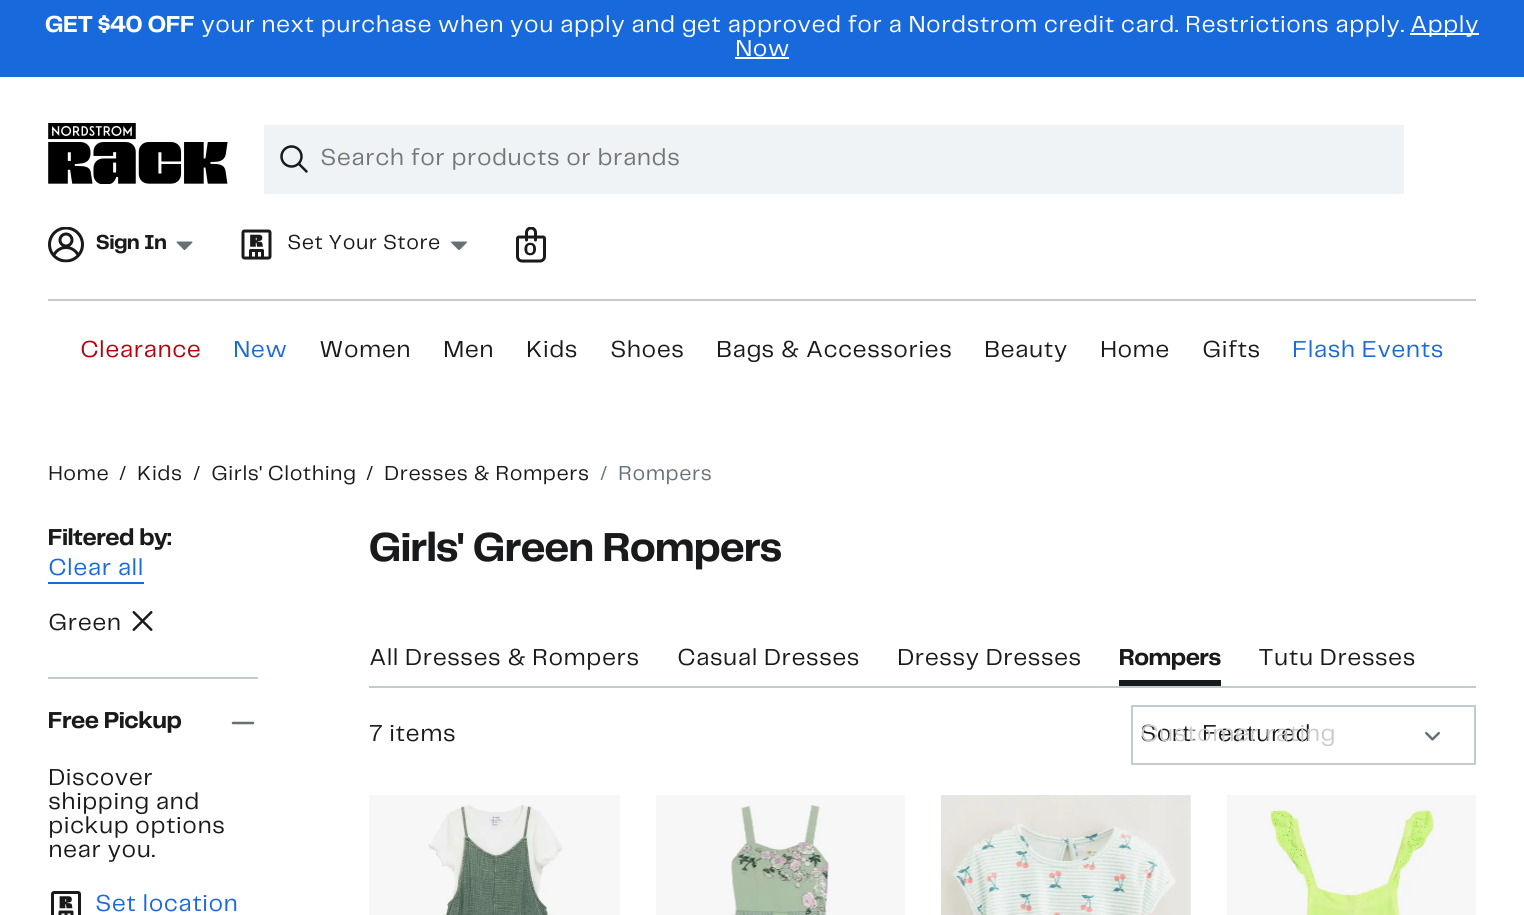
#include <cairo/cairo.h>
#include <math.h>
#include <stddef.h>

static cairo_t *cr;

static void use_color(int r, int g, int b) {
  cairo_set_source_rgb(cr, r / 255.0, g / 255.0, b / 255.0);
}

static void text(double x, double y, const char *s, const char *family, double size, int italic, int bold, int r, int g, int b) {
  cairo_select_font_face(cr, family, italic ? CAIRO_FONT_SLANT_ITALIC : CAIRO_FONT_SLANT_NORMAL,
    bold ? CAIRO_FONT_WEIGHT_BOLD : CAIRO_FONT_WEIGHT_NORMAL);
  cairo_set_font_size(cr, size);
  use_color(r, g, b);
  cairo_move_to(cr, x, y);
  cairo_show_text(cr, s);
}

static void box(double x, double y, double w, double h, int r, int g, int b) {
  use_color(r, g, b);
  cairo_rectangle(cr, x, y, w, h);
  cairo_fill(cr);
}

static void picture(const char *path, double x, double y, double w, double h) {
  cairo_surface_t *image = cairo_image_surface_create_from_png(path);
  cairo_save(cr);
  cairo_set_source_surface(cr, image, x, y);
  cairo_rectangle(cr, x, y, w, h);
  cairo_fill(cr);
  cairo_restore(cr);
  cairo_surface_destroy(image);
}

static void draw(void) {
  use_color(255, 255, 255);
  cairo_paint(cr);
  box(0, 0, 1524, 77, 24, 106, 220);
  box(1410, 33, 69, 2, 255, 255, 255);
  box(735, 57, 54, 2, 255, 255, 255);
  picture("img_01.png", 48, 123, 180, 61);
  box(264, 125, 1140, 69, 240, 243, 245);
  picture("img_02.png", 280, 145, 28, 28);
  picture("img_03.png", 48, 227, 36, 36);
  picture("img_04.png", 176, 241, 17, 9);
  picture("img_05.png", 241, 229, 31, 31);
  picture("img_06.png", 451, 241, 16, 9);
  picture("img_07.png", 516, 227, 30, 36);
  box(48, 299, 1428, 2, 194, 203, 205);
  box(48, 582, 96, 2, 24, 106, 220);
  picture("img_08.png", 132, 611, 21, 20);
  box(48, 677, 210, 2, 194, 203, 205);
  picture("img_09.png", 231, 721, 24, 4);
  picture("img_10.png", 51, 891, 30, 24);
  box(369, 686, 1107, 2, 194, 203, 205);
  box(1119, 680, 102, 6, 25, 26, 27);
  cairo_rectangle(cr, 1132, 706, 343, 58);
  use_color(194, 203, 205);
  cairo_stroke(cr);
  picture("img_11.png", 1425, 731, 15, 10);
  box(369, 795, 251, 120, 247, 247, 247);
  picture("img_12.png", 428, 805, 135, 110);
  box(656, 795, 249, 120, 247, 247, 247);
  picture("img_13.png", 731, 805, 99, 110);
  picture("img_14.png", 941, 795, 250, 120);
  box(1227, 795, 249, 120, 247, 247, 247);
  picture("img_15.png", 1270, 808, 165, 107);
  text(45, 32, "GET $40 OFF", "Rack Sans", 24, 0, 1, 255, 255, 255);
  text(201, 32, "your next purchase when you apply and get approved for a Nordstrom credit card. Restrictions apply.", "Rack Sans", 24, 0, 0, 255, 255, 255);
  text(1410, 32, "Apply", "Rack Sans", 24, 0, 0, 255, 255, 255);
  text(735, 56, "Now", "Rack Sans", 24, 0, 0, 255, 255, 255);
  text(320, 165, "Search for products or brands", "Rack Sans", 24, 0, 0, 117, 117, 117);
  text(96, 249, "Sign In", "Rack Sans", 21, 0, 1, 25, 26, 27);
  text(287, 249, "Set Your Store", "Rack Sans", 21, 0, 0, 25, 26, 27);
  text(524, 255, "0", "Rack Sans", 18, 0, 1, 25, 26, 27);
  text(80, 357, "Clearance", "Rack Sans", 24, 0, 0, 184, 0, 9);
  text(233, 357, "New", "Rack Sans", 24, 0, 0, 24, 106, 220);
  text(319, 357, "Women", "Rack Sans", 24, 0, 0, 25, 26, 27);
  text(443, 357, "Men", "Rack Sans", 24, 0, 0, 25, 26, 27);
  text(526, 357, "Kids", "Rack Sans", 24, 0, 0, 25, 26, 27);
  text(610, 357, "Shoes", "Rack Sans", 24, 0, 0, 25, 26, 27);
  text(716, 357, "Bags & Accessories", "Rack Sans", 24, 0, 0, 25, 26, 27);
  text(984, 357, "Beauty", "Rack Sans", 24, 0, 0, 25, 26, 27);
  text(1100, 357, "Home", "Rack Sans", 24, 0, 0, 25, 26, 27);
  text(1202, 357, "Gifts", "Rack Sans", 24, 0, 0, 25, 26, 27);
  text(1292, 357, "Flash Events", "Rack Sans", 24, 0, 0, 24, 106, 220);
  text(48, 480, "Home", "Rack Sans", 21, 0, 0, 25, 26, 27);
  text(119, 480, "/", "Rack Sans", 21, 0, 0, 25, 26, 27);
  text(137, 480, "Kids", "Rack Sans", 21, 0, 0, 25, 26, 27);
  text(193, 480, "/", "Rack Sans", 21, 0, 0, 25, 26, 27);
  text(211, 480, "Girls' Clothing", "Rack Sans", 21, 0, 0, 25, 26, 27);
  text(366, 480, "/", "Rack Sans", 21, 0, 0, 25, 26, 27);
  text(384, 480, "Dresses & Rompers", "Rack Sans", 21, 0, 0, 25, 26, 27);
  text(600, 480, "/", "Rack Sans", 21, 0, 0, 100, 113, 117);
  text(618, 480, "Rompers", "Rack Sans", 21, 0, 0, 100, 113, 117);
  text(48, 545, "Filtered by:", "Rack Sans", 24, 0, 1, 25, 26, 27);
  text(48, 575, "Clear all", "Rack Sans", 24, 0, 0, 24, 106, 220);
  text(48, 630, "Green", "Rack Sans", 24, 0, 0, 25, 26, 27);
  text(48, 728, "Free Pickup", "Rack Sans", 24, 0, 1, 25, 26, 27);
  text(48, 785, "Discover", "Rack Sans", 24, 0, 0, 25, 26, 27);
  text(48, 809, "shipping and", "Rack Sans", 24, 0, 0, 25, 26, 27);
  text(48, 833, "pickup options", "Rack Sans", 24, 0, 0, 25, 26, 27);
  text(48, 857, "near you.", "Rack Sans", 24, 0, 0, 25, 26, 27);
  text(95, 911, "Set location", "Rack Sans", 24, 0, 0, 24, 106, 220);
  text(369, 561, "Girls' Green Rompers", "Rack Sans", 42, 0, 1, 25, 26, 27);
  text(369, 665, "All Dresses & Rompers", "Rack Sans", 24, 0, 0, 25, 26, 27);
  text(677, 665, "Casual Dresses", "Rack Sans", 24, 0, 0, 25, 26, 27);
  text(897, 665, "Dressy Dresses", "Rack Sans", 24, 0, 0, 25, 26, 27);
  text(1119, 665, "Rompers", "Rack Sans", 24, 0, 1, 25, 26, 27);
  text(1258, 665, "Tutu Dresses", "Rack Sans", 24, 0, 0, 25, 26, 27);
  text(369, 741, "7 items", "Rack Sans", 24, 0, 0, 25, 26, 27);
  text(1140, 741, "Sort: Featured", "Rack Sans", 24, 0, 0, 25, 26, 27);
  text(1140, 741, "Customer rating", "Rack Sans", 24, 0, 0, 202, 202, 202);
}

int main(void) {
  cairo_surface_t *surface = cairo_image_surface_create(CAIRO_FORMAT_RGB24, 1524, 915);
  cr = cairo_create(surface);
  cairo_font_options_t *options = cairo_font_options_create();
  cairo_font_options_set_hint_metrics(options, CAIRO_HINT_METRICS_OFF);
  cairo_font_options_set_hint_style(options, CAIRO_HINT_STYLE_NONE);
  cairo_set_font_options(cr, options);
  cairo_set_miter_limit(cr, 4);
  draw();
  cairo_surface_write_to_png(surface, "out.png");
  cairo_font_options_destroy(options);
  cairo_destroy(cr);
  cairo_surface_destroy(surface);
  return 0;
}
